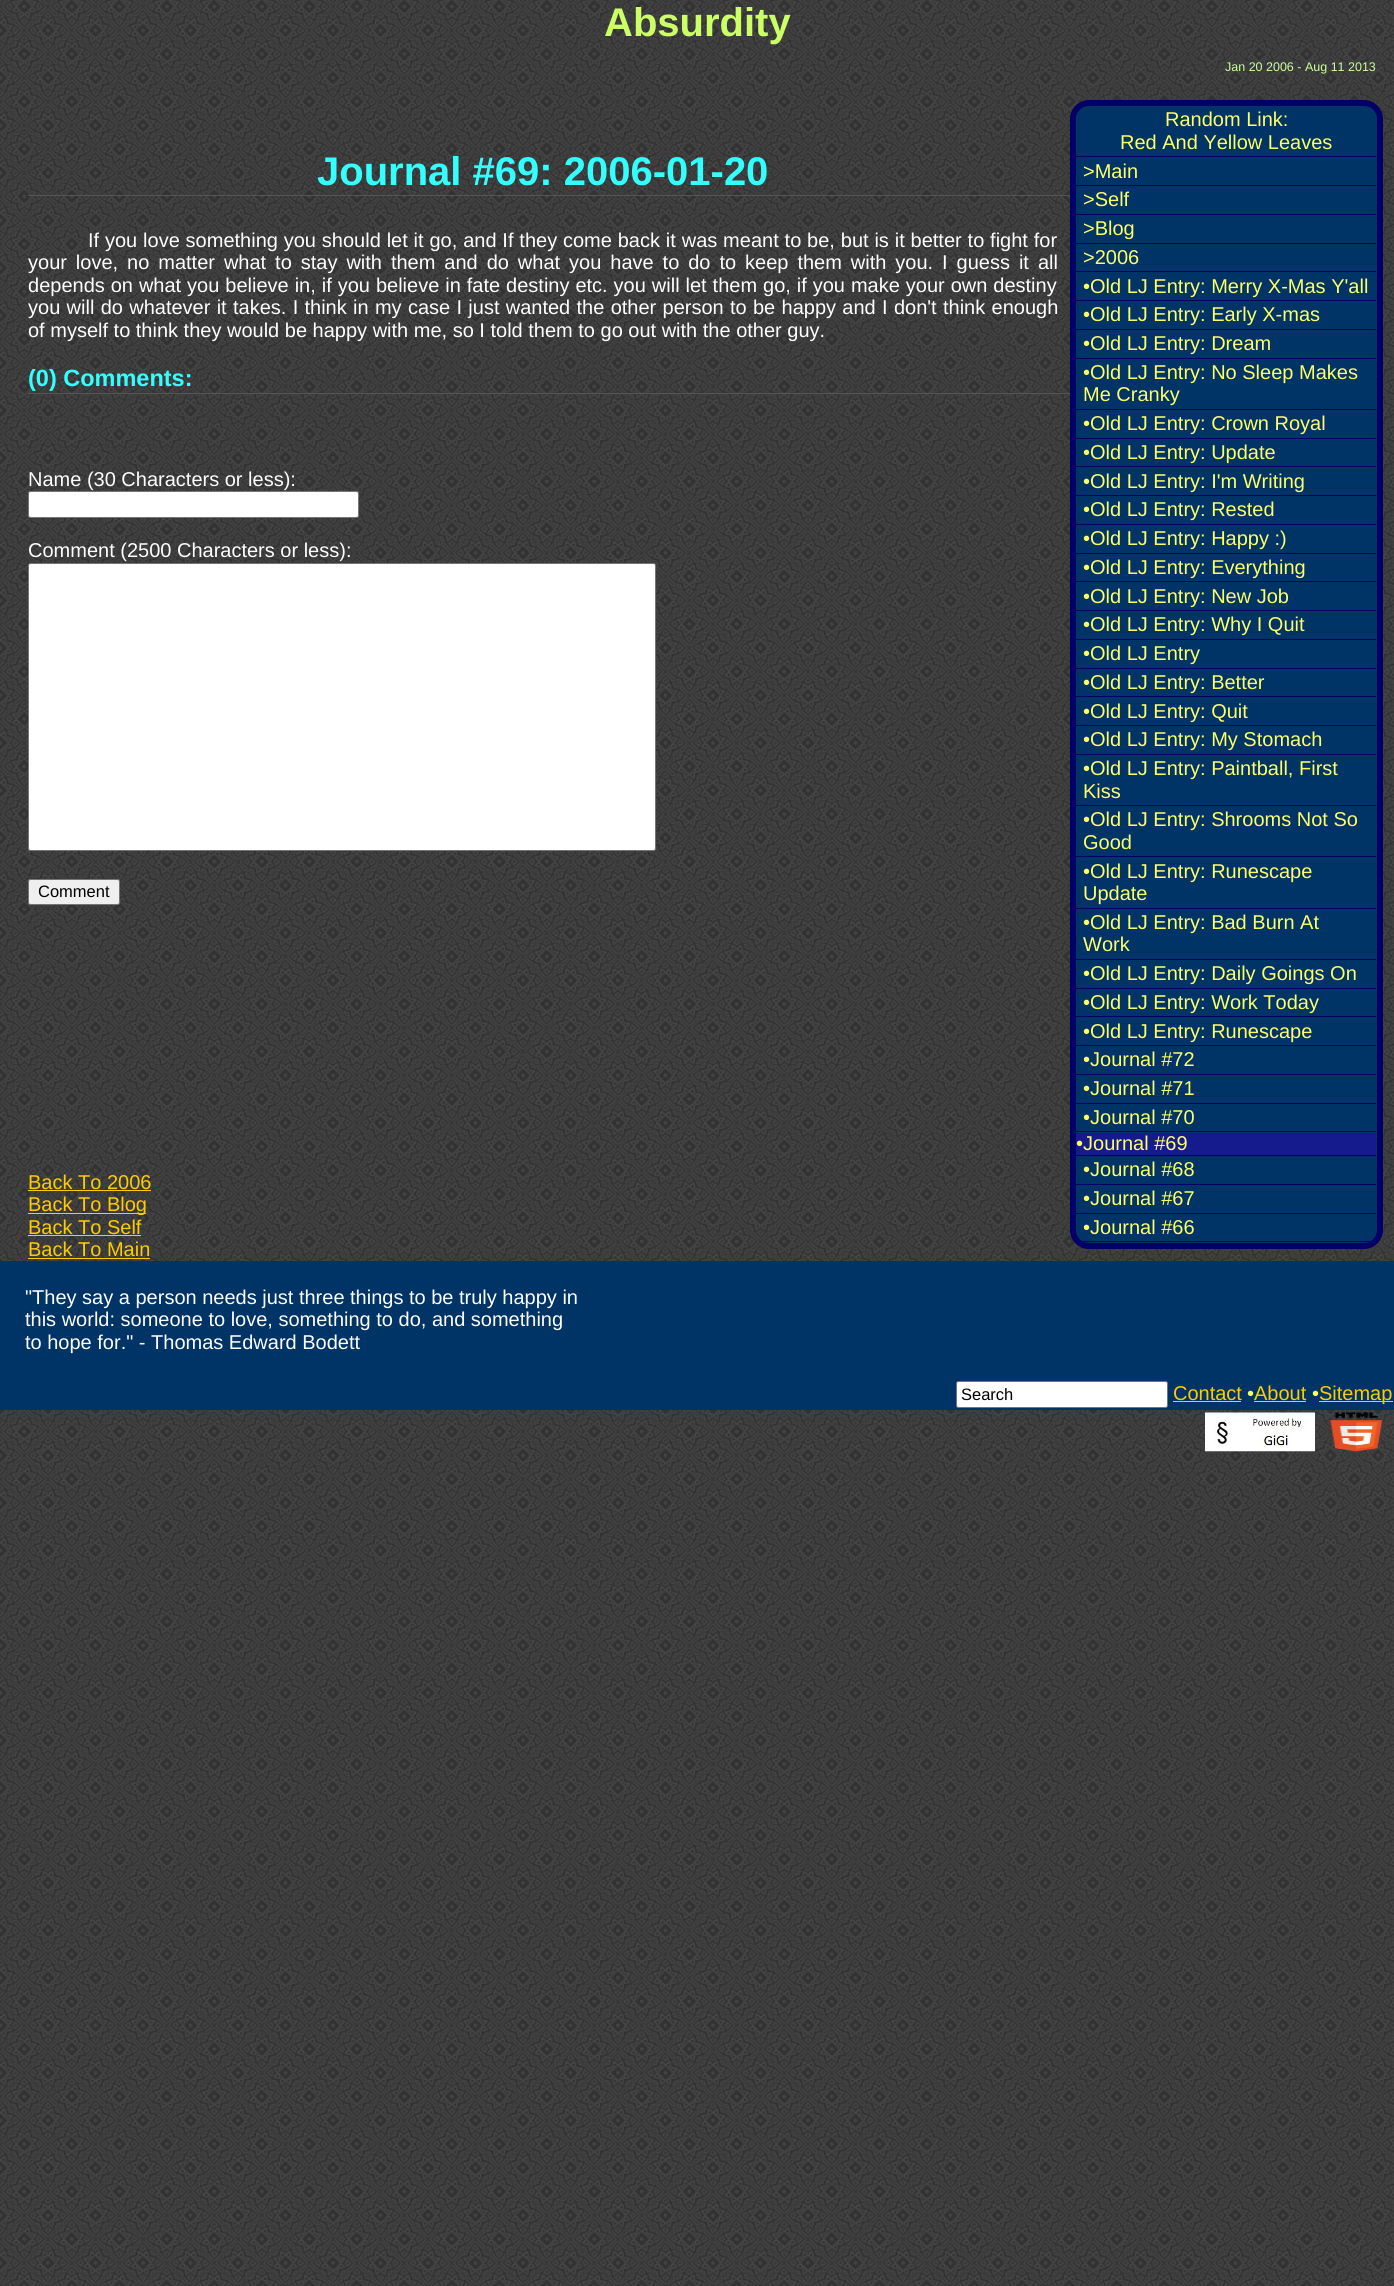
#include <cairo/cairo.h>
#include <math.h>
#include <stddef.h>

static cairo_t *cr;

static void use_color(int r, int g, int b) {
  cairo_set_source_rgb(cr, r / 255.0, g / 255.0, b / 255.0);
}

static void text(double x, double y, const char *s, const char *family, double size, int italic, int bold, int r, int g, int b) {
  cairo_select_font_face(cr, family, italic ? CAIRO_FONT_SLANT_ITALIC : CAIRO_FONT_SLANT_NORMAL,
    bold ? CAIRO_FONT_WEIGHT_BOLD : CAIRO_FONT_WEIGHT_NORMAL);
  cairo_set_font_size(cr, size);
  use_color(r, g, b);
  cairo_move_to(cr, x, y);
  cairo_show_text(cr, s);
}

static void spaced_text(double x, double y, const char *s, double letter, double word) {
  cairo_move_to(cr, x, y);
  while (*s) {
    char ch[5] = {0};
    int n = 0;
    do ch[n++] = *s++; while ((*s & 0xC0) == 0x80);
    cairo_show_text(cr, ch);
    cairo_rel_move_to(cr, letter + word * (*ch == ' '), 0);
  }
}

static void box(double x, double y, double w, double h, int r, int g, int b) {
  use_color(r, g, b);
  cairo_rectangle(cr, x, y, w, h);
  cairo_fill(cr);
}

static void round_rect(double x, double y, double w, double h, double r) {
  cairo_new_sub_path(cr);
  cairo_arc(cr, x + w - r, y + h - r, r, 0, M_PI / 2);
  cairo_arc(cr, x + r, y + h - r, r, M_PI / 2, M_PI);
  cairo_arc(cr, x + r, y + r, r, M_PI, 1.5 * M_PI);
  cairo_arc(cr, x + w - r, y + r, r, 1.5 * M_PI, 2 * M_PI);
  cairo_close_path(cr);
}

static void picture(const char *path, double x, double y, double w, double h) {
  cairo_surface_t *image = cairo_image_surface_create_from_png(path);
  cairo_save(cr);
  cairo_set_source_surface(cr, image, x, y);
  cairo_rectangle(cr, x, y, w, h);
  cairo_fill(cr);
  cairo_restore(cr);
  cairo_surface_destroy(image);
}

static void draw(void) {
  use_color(255, 255, 255);
  cairo_paint(cr);
  picture("img_01.png", 0, 0, 1394, 2286);
  box(28, 195, 1042, 1, 85, 85, 85);
  box(28, 393, 1042, 1, 85, 85, 85);
  use_color(255, 255, 255);
  round_rect(28.5, 491.5, 330, 26, 2);
  cairo_fill_preserve(cr);
  use_color(118, 118, 118);
  cairo_set_line_width(cr, 1);
  cairo_stroke(cr);
  use_color(255, 255, 255);
  round_rect(28.5, 563.5, 627, 287, 2);
  cairo_fill_preserve(cr);
  use_color(118, 118, 118);
  cairo_stroke(cr);
  use_color(239, 239, 239);
  round_rect(28.5, 879.5, 91, 25, 2);
  cairo_fill_preserve(cr);
  use_color(118, 118, 118);
  cairo_stroke(cr);
  box(28, 1190, 123, 1, 255, 204, 0);
  box(28, 1213, 118, 1, 255, 204, 0);
  box(28, 1235, 113, 1, 255, 204, 0);
  box(28, 1258, 122, 1, 255, 204, 0);
  use_color(0, 51, 102);
  round_rect(1073, 103, 307, 1143, 16);
  cairo_fill_preserve(cr);
  use_color(0, 0, 102);
  cairo_set_line_width(cr, 6);
  cairo_stroke(cr);
  box(1076, 156, 300, 1, 0, 0, 102);
  box(1076, 185, 300, 1, 0, 0, 102);
  box(1076, 214, 300, 1, 0, 0, 102);
  box(1076, 243, 300, 1, 0, 0, 102);
  box(1076, 271, 300, 1, 0, 0, 102);
  box(1076, 300, 300, 1, 0, 0, 102);
  box(1076, 329, 300, 1, 0, 0, 102);
  box(1076, 358, 300, 1, 0, 0, 102);
  box(1076, 409, 300, 1, 0, 0, 102);
  box(1076, 438, 300, 1, 0, 0, 102);
  box(1076, 466, 300, 1, 0, 0, 102);
  box(1076, 495, 300, 1, 0, 0, 102);
  box(1076, 524, 300, 1, 0, 0, 102);
  box(1076, 553, 300, 1, 0, 0, 102);
  box(1076, 581, 300, 1, 0, 0, 102);
  box(1076, 610, 300, 1, 0, 0, 102);
  box(1076, 639, 300, 1, 0, 0, 102);
  box(1076, 668, 300, 1, 0, 0, 102);
  box(1076, 696, 300, 1, 0, 0, 102);
  box(1076, 725, 300, 1, 0, 0, 102);
  box(1076, 754, 300, 1, 0, 0, 102);
  box(1076, 805, 300, 1, 0, 0, 102);
  box(1076, 856, 300, 1, 0, 0, 102);
  box(1076, 908, 300, 1, 0, 0, 102);
  box(1076, 959, 300, 1, 0, 0, 102);
  box(1076, 988, 300, 1, 0, 0, 102);
  box(1076, 1016, 300, 1, 0, 0, 102);
  box(1076, 1045, 300, 1, 0, 0, 102);
  box(1076, 1074, 300, 1, 0, 0, 102);
  box(1076, 1103, 300, 1, 0, 0, 102);
  box(1076, 1131, 300, 1, 0, 0, 102);
  box(1076, 1133, 300, 22, 21, 27, 141);
  box(1076, 1155, 300, 1, 0, 0, 102);
  box(1076, 1184, 300, 1, 0, 0, 102);
  box(1076, 1213, 300, 1, 0, 0, 102);
  box(1076, 1241, 300, 1, 0, 0, 102);
  box(0, 1261, 1394, 149, 0, 51, 102);
  use_color(255, 255, 255);
  round_rect(956.5, 1381.5, 211, 26, 2);
  cairo_fill_preserve(cr);
  use_color(118, 118, 118);
  cairo_set_line_width(cr, 1);
  cairo_stroke(cr);
  box(1173, 1401, 68, 1, 255, 204, 0);
  box(1254, 1401, 52, 1, 255, 204, 0);
  box(1319, 1401, 74, 1, 255, 204, 0);
  picture("img_02.png", 1205, 1412, 110, 40);
  picture("img_03.png", 1330, 1412, 53, 40);
  text(604, 36, "Absurdity", "Liberation Sans", 40, 0, 1, 204, 255, 102);
  text(1225, 71, "Jan 20 2006 - Aug 11 2013", "Liberation Sans", 12.5, 0, 0, 204, 255, 153);
  text(317, 185, "Journal #69: 2006-01-20", "Liberation Sans", 40, 0, 1, 51, 255, 255);
  cairo_select_font_face(cr, "Liberation Sans", CAIRO_FONT_SLANT_NORMAL, CAIRO_FONT_WEIGHT_NORMAL);
  cairo_set_font_size(cr, 20);
  use_color(255, 255, 255);
  spaced_text(88, 247, "If you love something you should let it go, and If they come back it was meant to be, but is it better to fight for", 0, 0.3);
  spaced_text(28, 269, "your love, no matter what to stay with them and do what you have to do to keep them with you. I guess it all", 0, 3.4);
  spaced_text(28, 292, "depends on what you believe in, if you believe in fate destiny etc. you will let them go, if you make your own destiny", 0, 0.4);
  spaced_text(28, 314, "you will do whatever it takes. I think in my case I just wanted the other person to be happy and I don't think enough", 0, 0.75);
  text(28, 337, "of myself to think they would be happy with me, so I told them to go out with the other guy.", "Liberation Sans", 20, 0, 0, 255, 255, 255);
  text(28, 386, "(0) Comments:", "Liberation Sans", 23.5, 0, 1, 51, 255, 255);
  text(28, 486, "Name (30 Characters or less):", "Liberation Sans", 20, 0, 0, 255, 255, 255);
  text(28, 557, "Comment (2500 Characters or less):", "Liberation Sans", 20, 0, 0, 255, 255, 255);
  text(38, 897, "Comment", "Liberation Sans", 16.5, 0, 0, 0, 0, 0);
  text(28, 1189, "Back To 2006", "Liberation Sans", 20, 0, 0, 255, 204, 0);
  text(28, 1211, "Back To Blog", "Liberation Sans", 20, 0, 0, 255, 204, 0);
  text(28, 1234, "Back To Self", "Liberation Sans", 20, 0, 0, 255, 204, 0);
  text(28, 1256, "Back To Main", "Liberation Sans", 20, 0, 0, 255, 204, 0);
  text(1165, 126, "Random Link:", "Liberation Sans", 20, 0, 0, 255, 255, 102);
  text(1120, 149, "Red And Yellow Leaves", "Liberation Sans", 20, 0, 0, 255, 255, 102);
  text(1083, 178, ">Main", "Liberation Sans", 20, 0, 0, 255, 255, 102);
  text(1083, 206, ">Self", "Liberation Sans", 20, 0, 0, 255, 255, 102);
  text(1083, 235, ">Blog", "Liberation Sans", 20, 0, 0, 255, 255, 102);
  text(1083, 264, ">2006", "Liberation Sans", 20, 0, 0, 255, 255, 102);
  text(1083, 293, "•Old LJ Entry: Merry X-Mas Y'all", "Liberation Sans", 20, 0, 0, 255, 255, 102);
  text(1083, 321, "•Old LJ Entry: Early X-mas", "Liberation Sans", 20, 0, 0, 255, 255, 102);
  text(1083, 350, "•Old LJ Entry: Dream", "Liberation Sans", 20, 0, 0, 255, 255, 102);
  text(1083, 379, "•Old LJ Entry: No Sleep Makes", "Liberation Sans", 20, 0, 0, 255, 255, 102);
  text(1083, 401, "Me Cranky", "Liberation Sans", 20, 0, 0, 255, 255, 102);
  text(1083, 430, "•Old LJ Entry: Crown Royal", "Liberation Sans", 20, 0, 0, 255, 255, 102);
  text(1083, 459, "•Old LJ Entry: Update", "Liberation Sans", 20, 0, 0, 255, 255, 102);
  text(1083, 488, "•Old LJ Entry: I'm Writing", "Liberation Sans", 20, 0, 0, 255, 255, 102);
  text(1083, 516, "•Old LJ Entry: Rested", "Liberation Sans", 20, 0, 0, 255, 255, 102);
  text(1083, 545, "•Old LJ Entry: Happy :)", "Liberation Sans", 20, 0, 0, 255, 255, 102);
  text(1083, 574, "•Old LJ Entry: Everything", "Liberation Sans", 20, 0, 0, 255, 255, 102);
  text(1083, 603, "•Old LJ Entry: New Job", "Liberation Sans", 20, 0, 0, 255, 255, 102);
  text(1083, 631, "•Old LJ Entry: Why I Quit", "Liberation Sans", 20, 0, 0, 255, 255, 102);
  text(1083, 660, "•Old LJ Entry", "Liberation Sans", 20, 0, 0, 255, 255, 102);
  text(1083, 689, "•Old LJ Entry: Better", "Liberation Sans", 20, 0, 0, 255, 255, 102);
  text(1083, 718, "•Old LJ Entry: Quit", "Liberation Sans", 20, 0, 0, 255, 255, 102);
  text(1083, 746, "•Old LJ Entry: My Stomach", "Liberation Sans", 20, 0, 0, 255, 255, 102);
  text(1083, 775, "•Old LJ Entry: Paintball, First", "Liberation Sans", 20, 0, 0, 255, 255, 102);
  text(1083, 798, "Kiss", "Liberation Sans", 20, 0, 0, 255, 255, 102);
  text(1083, 826, "•Old LJ Entry: Shrooms Not So", "Liberation Sans", 20, 0, 0, 255, 255, 102);
  text(1083, 849, "Good", "Liberation Sans", 20, 0, 0, 255, 255, 102);
  text(1083, 878, "•Old LJ Entry: Runescape", "Liberation Sans", 20, 0, 0, 255, 255, 102);
  text(1083, 900, "Update", "Liberation Sans", 20, 0, 0, 255, 255, 102);
  text(1083, 929, "•Old LJ Entry: Bad Burn At", "Liberation Sans", 20, 0, 0, 255, 255, 102);
  text(1083, 951, "Work", "Liberation Sans", 20, 0, 0, 255, 255, 102);
  text(1083, 980, "•Old LJ Entry: Daily Goings On", "Liberation Sans", 20, 0, 0, 255, 255, 102);
  text(1083, 1009, "•Old LJ Entry: Work Today", "Liberation Sans", 20, 0, 0, 255, 255, 102);
  text(1083, 1038, "•Old LJ Entry: Runescape", "Liberation Sans", 20, 0, 0, 255, 255, 102);
  text(1083, 1066, "•Journal #72", "Liberation Sans", 20, 0, 0, 255, 255, 102);
  text(1083, 1095, "•Journal #71", "Liberation Sans", 20, 0, 0, 255, 255, 102);
  text(1083, 1124, "•Journal #70", "Liberation Sans", 20, 0, 0, 255, 255, 102);
  text(1076, 1150, "•Journal #69", "Liberation Sans", 20, 0, 0, 255, 255, 102);
  text(1083, 1176, "•Journal #68", "Liberation Sans", 20, 0, 0, 255, 255, 102);
  text(1083, 1205, "•Journal #67", "Liberation Sans", 20, 0, 0, 255, 255, 102);
  text(1083, 1234, "•Journal #66", "Liberation Sans", 20, 0, 0, 255, 255, 102);
  text(25, 1304, "\"They say a person needs just three things to be truly happy in", "Liberation Sans", 20, 0, 0, 255, 255, 255);
  text(25, 1326, "this world: someone to love, something to do, and something", "Liberation Sans", 20, 0, 0, 255, 255, 255);
  text(25, 1349, "to hope for.\" - Thomas Edward Bodett", "Liberation Sans", 20, 0, 0, 255, 255, 255);
  text(961, 1400, "Search", "Liberation Sans", 16.5, 0, 0, 0, 0, 0);
  text(1173, 1400, "Contact", "Liberation Sans", 20, 0, 0, 255, 204, 0);
  text(1247, 1400, "•", "Liberation Sans", 20, 0, 0, 255, 255, 102);
  text(1254, 1400, "About", "Liberation Sans", 20, 0, 0, 255, 204, 0);
  text(1312, 1400, "•", "Liberation Sans", 20, 0, 0, 255, 255, 102);
  text(1319, 1400, "Sitemap", "Liberation Sans", 20, 0, 0, 255, 204, 0);
}

int main(void) {
  cairo_surface_t *surface = cairo_image_surface_create(CAIRO_FORMAT_RGB24, 1394, 2286);
  cr = cairo_create(surface);
  cairo_font_options_t *options = cairo_font_options_create();
  cairo_font_options_set_hint_metrics(options, CAIRO_HINT_METRICS_OFF);
  cairo_font_options_set_hint_style(options, CAIRO_HINT_STYLE_NONE);
  cairo_set_font_options(cr, options);
  cairo_set_miter_limit(cr, 4);
  draw();
  cairo_surface_write_to_png(surface, "out.png");
  cairo_font_options_destroy(options);
  cairo_destroy(cr);
  cairo_surface_destroy(surface);
  return 0;
}
